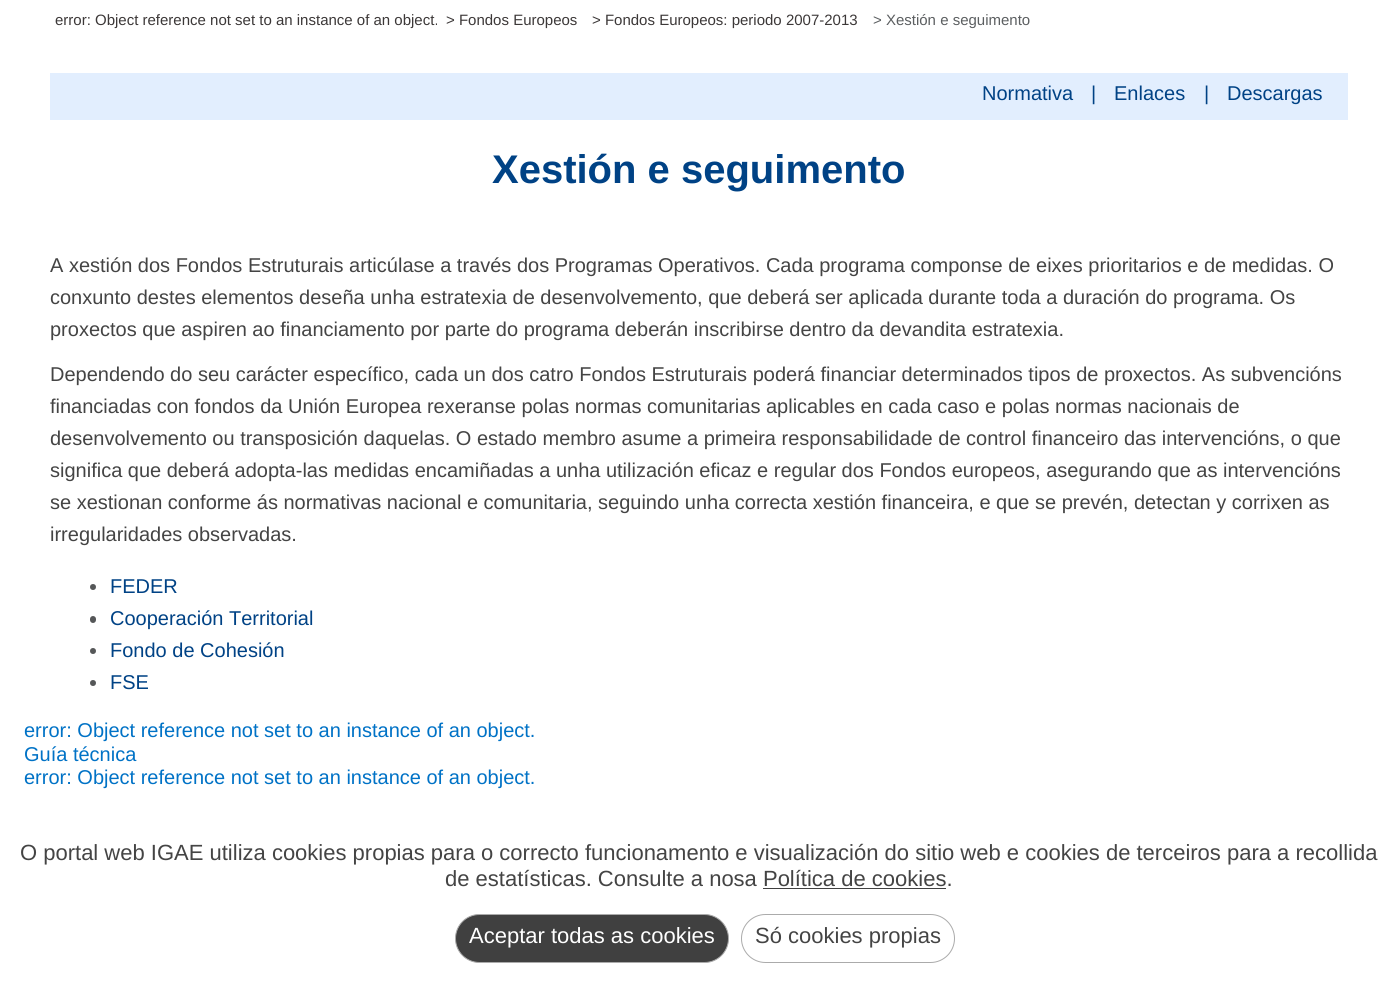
#include <cairo/cairo.h>
#include <math.h>
#include <stddef.h>

static cairo_t *cr;

static void use_color(int r, int g, int b) {
  cairo_set_source_rgb(cr, r / 255.0, g / 255.0, b / 255.0);
}

static void text(double x, double y, const char *s, const char *family, double size, int italic, int bold, int r, int g, int b) {
  cairo_select_font_face(cr, family, italic ? CAIRO_FONT_SLANT_ITALIC : CAIRO_FONT_SLANT_NORMAL,
    bold ? CAIRO_FONT_WEIGHT_BOLD : CAIRO_FONT_WEIGHT_NORMAL);
  cairo_set_font_size(cr, size);
  use_color(r, g, b);
  cairo_move_to(cr, x, y);
  cairo_show_text(cr, s);
}

static void box(double x, double y, double w, double h, int r, int g, int b) {
  use_color(r, g, b);
  cairo_rectangle(cr, x, y, w, h);
  cairo_fill(cr);
}

static void round_rect(double x, double y, double w, double h, double r) {
  cairo_new_sub_path(cr);
  cairo_arc(cr, x + w - r, y + h - r, r, 0, M_PI / 2);
  cairo_arc(cr, x + r, y + h - r, r, M_PI / 2, M_PI);
  cairo_arc(cr, x + r, y + r, r, M_PI, 1.5 * M_PI);
  cairo_arc(cr, x + w - r, y + r, r, 1.5 * M_PI, 2 * M_PI);
  cairo_close_path(cr);
}

static void draw(void) {
  use_color(255, 255, 255);
  cairo_paint(cr);
  box(50, 73, 1298, 47, 226, 238, 254);
  use_color(85, 87, 88);
  cairo_arc(cr, 93, 587, 3, 0, 2 * M_PI);
  cairo_fill(cr);
  round_rect(90, 616, 6, 7, 3);
  cairo_fill(cr);
  cairo_arc(cr, 93, 651, 3, 0, 2 * M_PI);
  cairo_fill(cr);
  cairo_arc(cr, 93, 683, 3, 0, 2 * M_PI);
  cairo_fill(cr);
  box(763, 888, 183, 1, 64, 64, 64);
  round_rect(455.5, 914.5, 273, 48, 24);
  cairo_fill_preserve(cr);
  use_color(171, 171, 171);
  cairo_set_line_width(cr, 1);
  cairo_stroke(cr);
  round_rect(741.5, 914.5, 213, 48, 24);
  cairo_stroke(cr);
  text(55, 25, "error: Object reference not set to an instance of an object.", "Liberation Sans", 15, 0, 0, 60, 56, 56);
  text(446, 25, "> Fondos Europeos", "Liberation Sans", 15, 0, 0, 60, 56, 56);
  text(592, 25, "> Fondos Europeos: periodo 2007-2013", "Liberation Sans", 15, 0, 0, 60, 56, 56);
  text(873, 25, "> Xestión e seguimento", "Liberation Sans", 15, 0, 0, 92, 95, 97);
  text(982, 100, "Normativa", "Liberation Sans", 20, 0, 0, 0, 66, 133);
  text(1091, 100, "|", "Liberation Sans", 20, 0, 0, 0, 66, 133);
  text(1114, 100, "Enlaces", "Liberation Sans", 20, 0, 0, 0, 66, 133);
  text(1204, 100, "|", "Liberation Sans", 20, 0, 0, 0, 66, 133);
  text(1227, 100, "Descargas", "Liberation Sans", 20, 0, 0, 0, 66, 133);
  text(492, 183, "Xestión e seguimento", "Liberation Sans", 40, 0, 1, 0, 66, 133);
  text(50, 272, "A xestión dos Fondos Estruturais articúlase a través dos Programas Operativos. Cada programa componse de eixes prioritarios e de medidas. O", "Liberation Sans", 20, 0, 0, 68, 68, 68);
  text(50, 304, "conxunto destes elementos deseña unha estratexia de desenvolvemento, que deberá ser aplicada durante toda a duración do programa. Os", "Liberation Sans", 20, 0, 0, 68, 68, 68);
  text(50, 336, "proxectos que aspiren ao financiamento por parte do programa deberán inscribirse dentro da devandita estratexia.", "Liberation Sans", 20, 0, 0, 68, 68, 68);
  text(50, 381, "Dependendo do seu carácter específico, cada un dos catro Fondos Estruturais poderá financiar determinados tipos de proxectos. As subvencións", "Liberation Sans", 20, 0, 0, 68, 68, 68);
  text(50, 413, "financiadas con fondos da Unión Europea rexeranse polas normas comunitarias aplicables en cada caso e polas normas nacionais de", "Liberation Sans", 20, 0, 0, 68, 68, 68);
  text(50, 445, "desenvolvemento ou transposición daquelas. O estado membro asume a primeira responsabilidade de control financeiro das intervencións, o que", "Liberation Sans", 20, 0, 0, 68, 68, 68);
  text(50, 477, "significa que deberá adopta-las medidas encamiñadas a unha utilización eficaz e regular dos Fondos europeos, asegurando que as intervencións", "Liberation Sans", 20, 0, 0, 68, 68, 68);
  text(50, 509, "se xestionan conforme ás normativas nacional e comunitaria, seguindo unha correcta xestión financeira, e que se prevén, detectan y corrixen as", "Liberation Sans", 20, 0, 0, 68, 68, 68);
  text(50, 541, "irregularidades observadas.", "Liberation Sans", 20, 0, 0, 68, 68, 68);
  text(110, 593, "FEDER", "Liberation Sans", 20, 0, 0, 0, 66, 133);
  text(110, 625, "Cooperación Territorial", "Liberation Sans", 20, 0, 0, 0, 66, 133);
  text(110, 657, "Fondo de Cohesión", "Liberation Sans", 20, 0, 0, 0, 66, 133);
  text(110, 689, "FSE", "Liberation Sans", 20, 0, 0, 0, 66, 133);
  text(24, 737, "error: Object reference not set to an instance of an object.", "Liberation Sans", 20, 0, 0, 0, 114, 198);
  text(24, 761, "Guía técnica", "Liberation Sans", 20, 0, 0, 0, 114, 198);
  text(24, 784, "error: Object reference not set to an instance of an object.", "Liberation Sans", 20, 0, 0, 0, 114, 198);
  text(20, 860, "O portal web IGAE utiliza cookies propias para o correcto funcionamento e visualización do sitio web e cookies de terceiros para a recollida", "Liberation Sans", 22, 0, 0, 68, 68, 68);
  text(445, 886, "de estatísticas. Consulte a nosa Política de cookies.", "Liberation Sans", 22, 0, 0, 68, 68, 68);
  text(469, 943, "Aceptar todas as cookies", "Liberation Sans", 22, 0, 0, 255, 255, 255);
  text(755, 943, "Só cookies propias", "Liberation Sans", 22, 0, 0, 68, 68, 68);
}

int main(void) {
  cairo_surface_t *surface = cairo_image_surface_create(CAIRO_FORMAT_RGB24, 1397, 1005);
  cr = cairo_create(surface);
  cairo_font_options_t *options = cairo_font_options_create();
  cairo_font_options_set_hint_metrics(options, CAIRO_HINT_METRICS_OFF);
  cairo_font_options_set_hint_style(options, CAIRO_HINT_STYLE_NONE);
  cairo_set_font_options(cr, options);
  cairo_set_miter_limit(cr, 4);
  draw();
  cairo_surface_write_to_png(surface, "out.png");
  cairo_font_options_destroy(options);
  cairo_destroy(cr);
  cairo_surface_destroy(surface);
  return 0;
}
